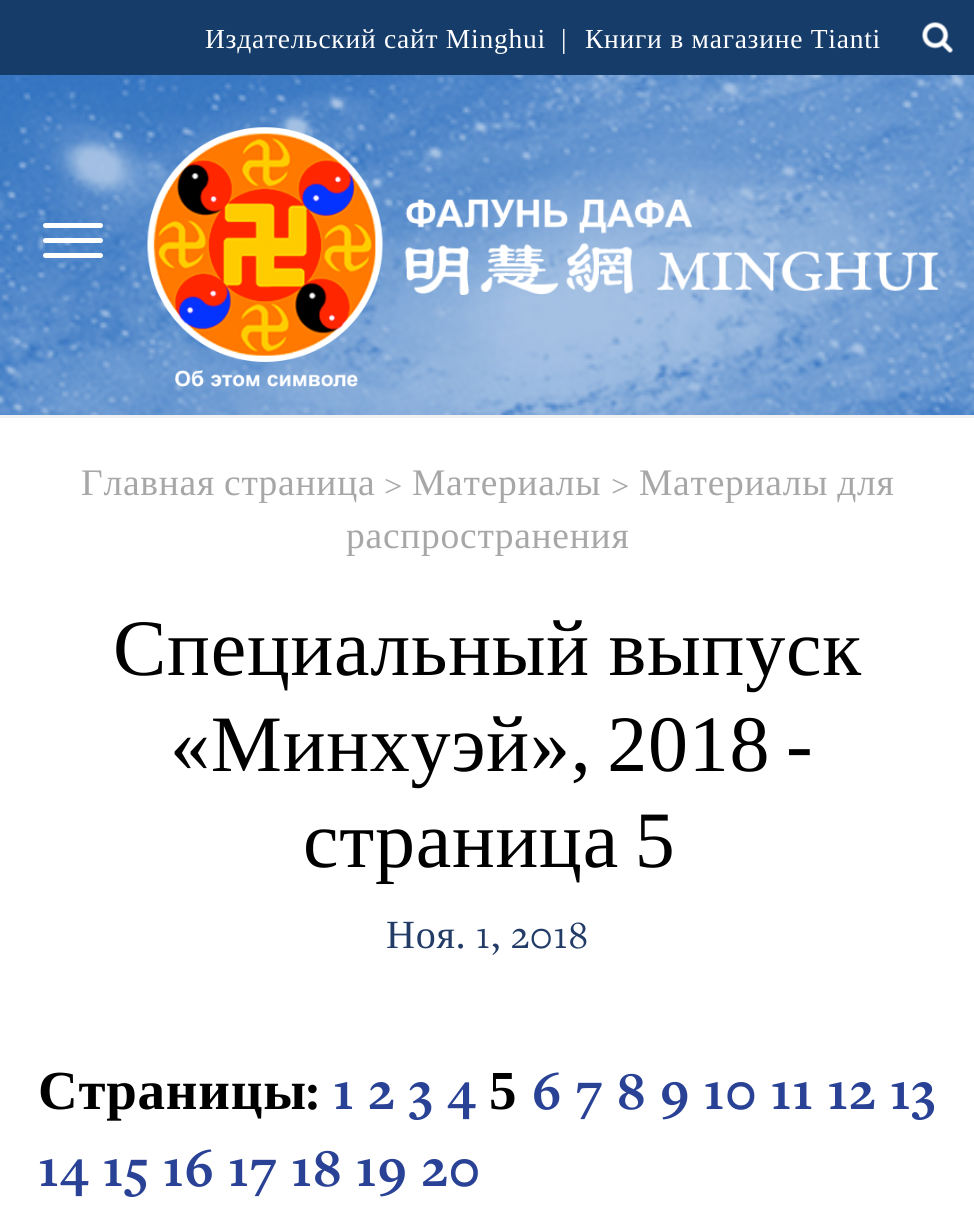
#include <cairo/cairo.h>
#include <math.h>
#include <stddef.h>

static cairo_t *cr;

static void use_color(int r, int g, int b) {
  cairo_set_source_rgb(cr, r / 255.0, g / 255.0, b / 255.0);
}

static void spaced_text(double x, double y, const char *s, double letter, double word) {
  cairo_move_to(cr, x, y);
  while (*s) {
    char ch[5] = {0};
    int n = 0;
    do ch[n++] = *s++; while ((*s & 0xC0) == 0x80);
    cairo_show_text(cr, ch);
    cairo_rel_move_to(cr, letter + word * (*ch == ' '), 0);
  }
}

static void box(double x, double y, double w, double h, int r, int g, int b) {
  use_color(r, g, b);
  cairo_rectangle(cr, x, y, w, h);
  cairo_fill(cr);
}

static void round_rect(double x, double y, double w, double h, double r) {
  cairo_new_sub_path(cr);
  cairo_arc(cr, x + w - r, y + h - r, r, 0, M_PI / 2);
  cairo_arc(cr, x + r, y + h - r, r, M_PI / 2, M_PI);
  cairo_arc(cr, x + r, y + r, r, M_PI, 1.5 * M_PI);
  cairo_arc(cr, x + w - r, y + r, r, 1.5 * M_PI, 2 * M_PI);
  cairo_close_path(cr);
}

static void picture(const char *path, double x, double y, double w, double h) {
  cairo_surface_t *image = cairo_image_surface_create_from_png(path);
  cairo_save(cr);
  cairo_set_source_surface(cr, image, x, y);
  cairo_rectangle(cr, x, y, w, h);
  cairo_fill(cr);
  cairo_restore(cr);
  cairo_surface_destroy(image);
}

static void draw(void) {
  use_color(255, 255, 255);
  cairo_paint(cr);
  box(0, 0, 974, 75, 22, 60, 106);
  picture("img_01.png", 922, 22, 31, 31);
  picture("img_02.png", 0, 75, 974, 340);
  use_color(255, 255, 255);
  round_rect(43, 223, 60, 5, 2.5);
  cairo_fill(cr);
  round_rect(43, 238, 60, 5, 2.5);
  cairo_fill(cr);
  round_rect(43, 253, 60, 5, 2.5);
  cairo_fill(cr);
  picture("img_03.png", 147, 127, 236, 260);
  picture("img_04.png", 404, 199, 535, 96);
  box(0, 415, 974, 3, 241, 241, 241);
  cairo_select_font_face(cr, "Liberation Serif", CAIRO_FONT_SLANT_NORMAL, CAIRO_FONT_WEIGHT_NORMAL);
  cairo_set_font_size(cr, 27.5);
  use_color(255, 255, 255);
  spaced_text(205, 48, "Издательский сайт Minghui", 0.75, 0);
  spaced_text(561, 48, "|", 0.75, 0);
  spaced_text(585, 48, "Книги в магазине Tianti", 0.75, 0);
  cairo_set_font_size(cr, 37.5);
  use_color(167, 167, 167);
  spaced_text(81, 495, "Главная страница", 0.75, -1);
  cairo_select_font_face(cr, "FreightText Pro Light", CAIRO_FONT_SLANT_NORMAL, CAIRO_FONT_WEIGHT_NORMAL);
  spaced_text(384, 495, ">", 0.75, 0);
  cairo_select_font_face(cr, "Liberation Serif", CAIRO_FONT_SLANT_NORMAL, CAIRO_FONT_WEIGHT_NORMAL);
  spaced_text(412, 495, "Материалы", 0.75, 0);
  cairo_select_font_face(cr, "FreightText Pro Light", CAIRO_FONT_SLANT_NORMAL, CAIRO_FONT_WEIGHT_NORMAL);
  spaced_text(611, 495, ">", 0.75, 0);
  cairo_select_font_face(cr, "Liberation Serif", CAIRO_FONT_SLANT_NORMAL, CAIRO_FONT_WEIGHT_NORMAL);
  spaced_text(639, 495, "Материалы для", 0.75, -1);
  spaced_text(346, 548, "распространения", 0.75, 0);
  cairo_set_font_size(cr, 80);
  use_color(0, 0, 0);
  spaced_text(113, 675, "Специальный выпуск", 0.75, -2);
  spaced_text(170, 771, "«Минхуэй», 2018 -", 0.75, -5);
  spaced_text(303, 867, "страница 5", 0.75, -5);
  cairo_set_font_size(cr, 40);
  use_color(34, 60, 103);
  spaced_text(386, 948, "Ноя", 0.75, 0);
  cairo_select_font_face(cr, "FreightText Pro", CAIRO_FONT_SLANT_NORMAL, CAIRO_FONT_WEIGHT_NORMAL);
  spaced_text(456, 948, ". 1, 2018", 0.75, 0);
  cairo_select_font_face(cr, "Liberation Serif", CAIRO_FONT_SLANT_NORMAL, CAIRO_FONT_WEIGHT_BOLD);
  cairo_set_font_size(cr, 55);
  use_color(0, 0, 0);
  spaced_text(38, 1109, "Страницы", 0.75, 0);
  cairo_select_font_face(cr, "FreightText Pro", CAIRO_FONT_SLANT_NORMAL, CAIRO_FONT_WEIGHT_BOLD);
  spaced_text(306, 1109, ":", 0.75, 0);
  use_color(42, 66, 150);
  spaced_text(333, 1109, "1 2 3 4", 0.75, 0);
  cairo_select_font_face(cr, "Liberation Serif", CAIRO_FONT_SLANT_NORMAL, CAIRO_FONT_WEIGHT_BOLD);
  use_color(0, 0, 0);
  spaced_text(489, 1109, "5", 0.75, 0);
  cairo_select_font_face(cr, "FreightText Pro", CAIRO_FONT_SLANT_NORMAL, CAIRO_FONT_WEIGHT_BOLD);
  use_color(42, 66, 150);
  spaced_text(532, 1109, "6 7 8 9 10 11 12 13", 0.75, 0);
  spaced_text(38, 1186, "14 15 16 17 18 19 20", 0.75, 0);
}

int main(void) {
  cairo_surface_t *surface = cairo_image_surface_create(CAIRO_FORMAT_RGB24, 974, 1223);
  cr = cairo_create(surface);
  cairo_font_options_t *options = cairo_font_options_create();
  cairo_font_options_set_hint_metrics(options, CAIRO_HINT_METRICS_OFF);
  cairo_font_options_set_hint_style(options, CAIRO_HINT_STYLE_NONE);
  cairo_set_font_options(cr, options);
  cairo_set_miter_limit(cr, 4);
  draw();
  cairo_surface_write_to_png(surface, "out.png");
  cairo_font_options_destroy(options);
  cairo_destroy(cr);
  cairo_surface_destroy(surface);
  return 0;
}
